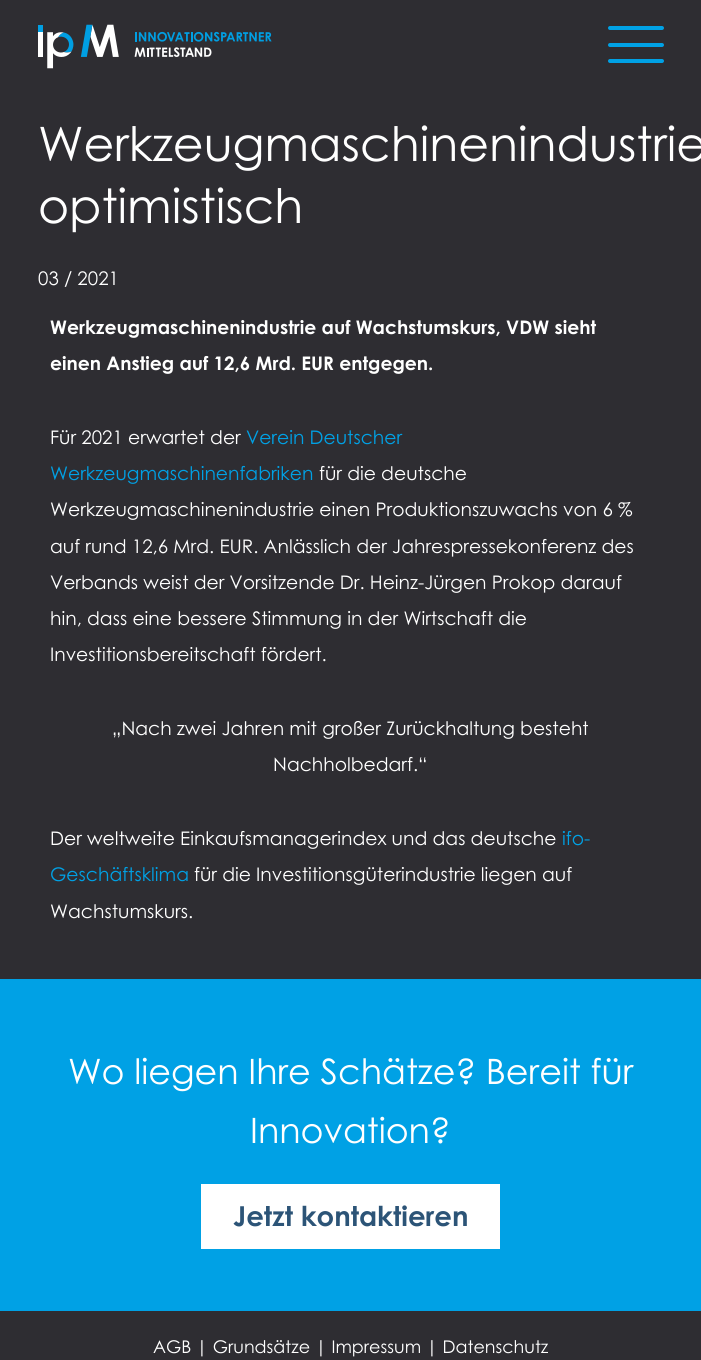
#include <cairo/cairo.h>
#include <math.h>
#include <stddef.h>

static cairo_t *cr;

static void use_color(int r, int g, int b) {
  cairo_set_source_rgb(cr, r / 255.0, g / 255.0, b / 255.0);
}

static void text(double x, double y, const char *s, const char *family, double size, int italic, int bold, int r, int g, int b) {
  cairo_select_font_face(cr, family, italic ? CAIRO_FONT_SLANT_ITALIC : CAIRO_FONT_SLANT_NORMAL,
    bold ? CAIRO_FONT_WEIGHT_BOLD : CAIRO_FONT_WEIGHT_NORMAL);
  cairo_set_font_size(cr, size);
  use_color(r, g, b);
  cairo_move_to(cr, x, y);
  cairo_show_text(cr, s);
}

static void box(double x, double y, double w, double h, int r, int g, int b) {
  use_color(r, g, b);
  cairo_rectangle(cr, x, y, w, h);
  cairo_fill(cr);
}

static void round_rect(double x, double y, double w, double h, double r) {
  cairo_new_sub_path(cr);
  cairo_arc(cr, x + w - r, y + h - r, r, 0, M_PI / 2);
  cairo_arc(cr, x + r, y + h - r, r, M_PI / 2, M_PI);
  cairo_arc(cr, x + r, y + r, r, M_PI, 1.5 * M_PI);
  cairo_arc(cr, x + w - r, y + r, r, 1.5 * M_PI, 2 * M_PI);
  cairo_close_path(cr);
}

static void picture(const char *path, double x, double y, double w, double h) {
  cairo_surface_t *image = cairo_image_surface_create_from_png(path);
  cairo_save(cr);
  cairo_set_source_surface(cr, image, x, y);
  cairo_rectangle(cr, x, y, w, h);
  cairo_fill(cr);
  cairo_restore(cr);
  cairo_surface_destroy(image);
}

static void draw(void) {
  use_color(46, 45, 50);
  cairo_paint(cr);
  picture("img_01.png", 38, 24, 234, 45);
  use_color(0, 161, 229);
  round_rect(608, 26, 56, 4, 2);
  cairo_fill(cr);
  round_rect(608, 43, 56, 4, 2);
  cairo_fill(cr);
  round_rect(608, 59, 56, 4, 2);
  cairo_fill(cr);
  box(0, 979, 701, 332, 0, 161, 229);
  box(201, 1184, 299, 65, 255, 255, 255);
  text(38, 161, "Werkzeugmaschinenindustrie", "Century Gothic", 47.5, 0, 0, 255, 255, 255);
  text(38, 223, "optimistisch", "Century Gothic", 47.5, 0, 0, 255, 255, 255);
  text(38, 285, "03 / 2021", "Century Gothic", 18.75, 0, 0, 255, 255, 255);
  text(50, 334, "Werkzeugmaschinenindustrie auf Wachstumskurs, VDW sieht", "Century Gothic", 18.75, 0, 1, 255, 255, 255);
  text(50, 370, "einen Anstieg auf 12,6 Mrd. EUR entgegen.", "Century Gothic", 18.75, 0, 1, 255, 255, 255);
  text(50, 444, "Für 2021 erwartet der", "Century Gothic", 18.75, 0, 0, 255, 255, 255);
  text(246, 444, "Verein Deutscher", "Century Gothic", 18.75, 0, 0, 0, 161, 229);
  text(50, 480, "Werkzeugmaschinenfabriken", "Century Gothic", 18.75, 0, 0, 0, 161, 229);
  text(319, 480, "für die deutsche", "Century Gothic", 18.75, 0, 0, 255, 255, 255);
  text(50, 516, "Werkzeugmaschinenindustrie einen Produktionszuwachs von 6 %", "Century Gothic", 18.75, 0, 0, 255, 255, 255);
  text(50, 553, "auf rund 12,6 Mrd. EUR. Anlässlich der Jahrespressekonferenz des", "Century Gothic", 18.75, 0, 0, 255, 255, 255);
  text(50, 589, "Verbands weist der Vorsitzende Dr. Heinz-Jürgen Prokop darauf", "Century Gothic", 18.75, 0, 0, 255, 255, 255);
  text(50, 625, "hin, dass eine bessere Stimmung in der Wirtschaft die", "Century Gothic", 18.75, 0, 0, 255, 255, 255);
  text(50, 661, "Investitionsbereitschaft fördert.", "Century Gothic", 18.75, 0, 0, 255, 255, 255);
  text(112, 735, "„Nach zwei Jahren mit großer Zurückhaltung besteht", "Century Gothic", 18.75, 0, 0, 255, 255, 255);
  text(273, 771, "Nachholbedarf.“", "Century Gothic", 18.75, 0, 0, 255, 255, 255);
  text(50, 845, "Der weltweite Einkaufsmanagerindex und das deutsche", "Century Gothic", 18.75, 0, 0, 255, 255, 255);
  text(562, 845, "ifo-", "Century Gothic", 18.75, 0, 0, 0, 161, 229);
  text(50, 881, "Geschäftsklima", "Century Gothic", 18.75, 0, 0, 0, 161, 229);
  text(194, 881, "für die Investitionsgüterindustrie liegen auf", "Century Gothic", 18.75, 0, 0, 255, 255, 255);
  text(50, 918, "Wachstumskurs.", "Century Gothic", 18.75, 0, 0, 255, 255, 255);
  text(68, 1084, "Wo liegen Ihre Schätze? Bereit für", "Century Gothic", 35, 0, 0, 255, 255, 255);
  text(250, 1143, "Innovation?", "Century Gothic", 35, 0, 0, 255, 255, 255);
  text(233, 1226, "Jetzt kontaktieren", "Century Gothic", 27.5, 0, 1, 44, 84, 119);
  text(153, 1353, "AGB | Grundsätze | Impressum | Datenschutz", "Century Gothic", 17.5, 0, 0, 255, 255, 255);
}

int main(void) {
  cairo_surface_t *surface = cairo_image_surface_create(CAIRO_FORMAT_RGB24, 701, 1360);
  cr = cairo_create(surface);
  cairo_font_options_t *options = cairo_font_options_create();
  cairo_font_options_set_hint_metrics(options, CAIRO_HINT_METRICS_OFF);
  cairo_font_options_set_hint_style(options, CAIRO_HINT_STYLE_NONE);
  cairo_set_font_options(cr, options);
  cairo_set_miter_limit(cr, 4);
  draw();
  cairo_surface_write_to_png(surface, "out.png");
  cairo_font_options_destroy(options);
  cairo_destroy(cr);
  cairo_surface_destroy(surface);
  return 0;
}
